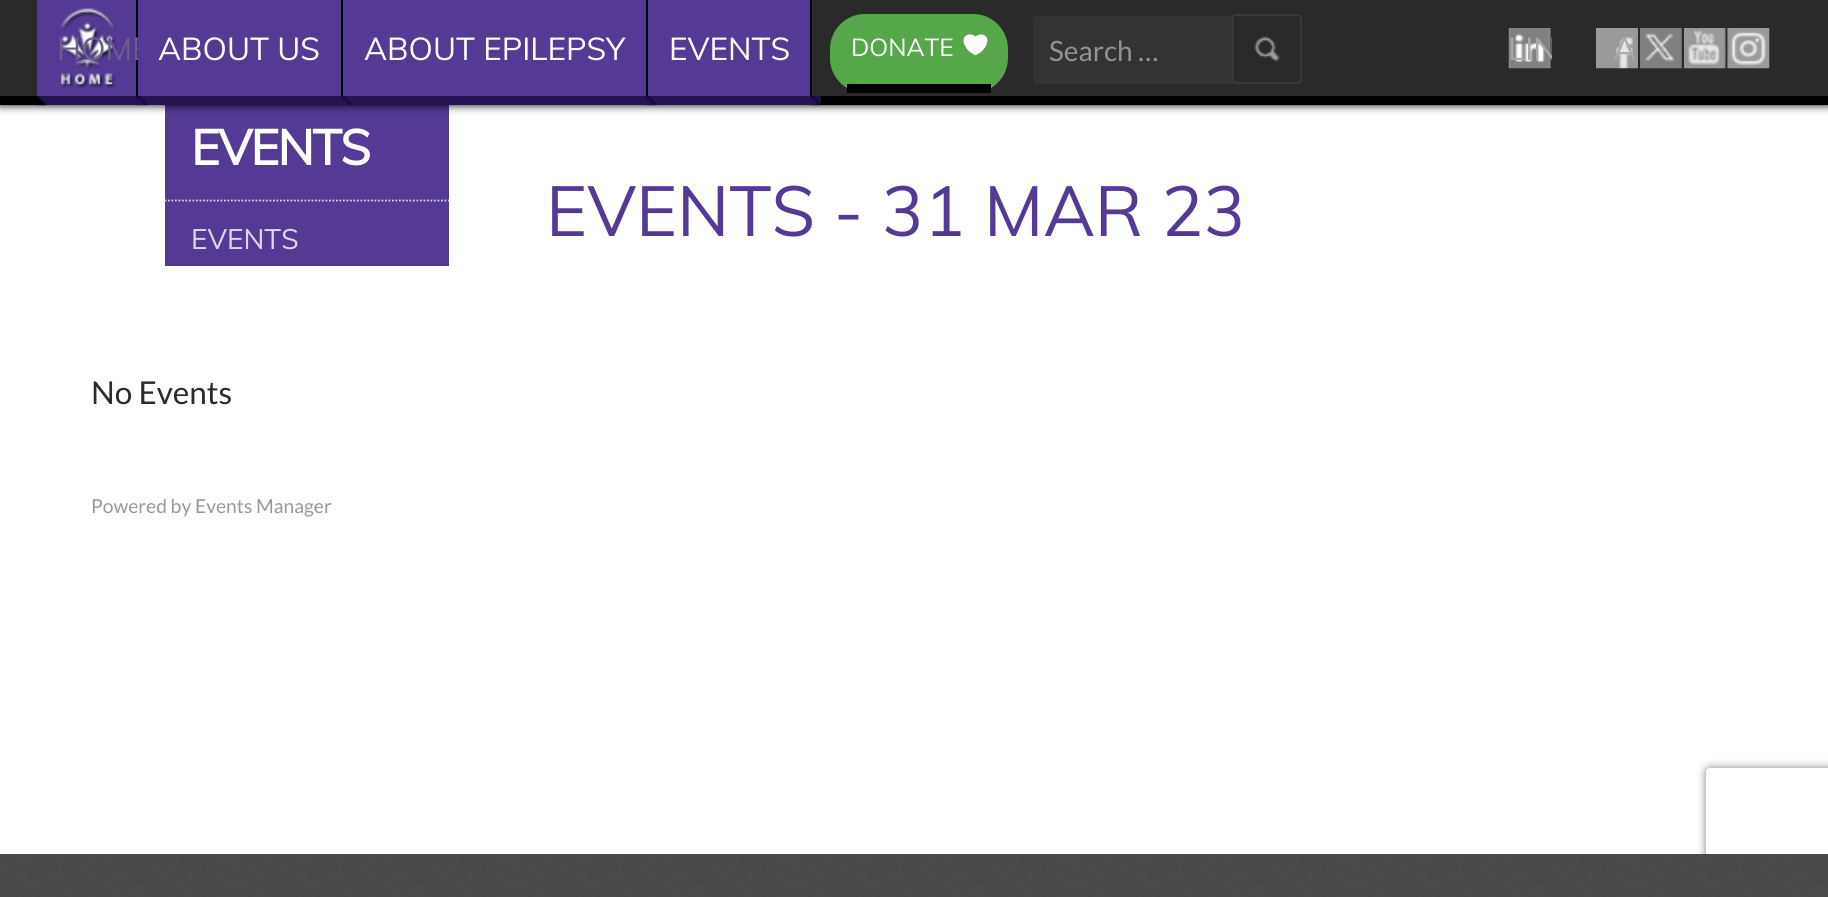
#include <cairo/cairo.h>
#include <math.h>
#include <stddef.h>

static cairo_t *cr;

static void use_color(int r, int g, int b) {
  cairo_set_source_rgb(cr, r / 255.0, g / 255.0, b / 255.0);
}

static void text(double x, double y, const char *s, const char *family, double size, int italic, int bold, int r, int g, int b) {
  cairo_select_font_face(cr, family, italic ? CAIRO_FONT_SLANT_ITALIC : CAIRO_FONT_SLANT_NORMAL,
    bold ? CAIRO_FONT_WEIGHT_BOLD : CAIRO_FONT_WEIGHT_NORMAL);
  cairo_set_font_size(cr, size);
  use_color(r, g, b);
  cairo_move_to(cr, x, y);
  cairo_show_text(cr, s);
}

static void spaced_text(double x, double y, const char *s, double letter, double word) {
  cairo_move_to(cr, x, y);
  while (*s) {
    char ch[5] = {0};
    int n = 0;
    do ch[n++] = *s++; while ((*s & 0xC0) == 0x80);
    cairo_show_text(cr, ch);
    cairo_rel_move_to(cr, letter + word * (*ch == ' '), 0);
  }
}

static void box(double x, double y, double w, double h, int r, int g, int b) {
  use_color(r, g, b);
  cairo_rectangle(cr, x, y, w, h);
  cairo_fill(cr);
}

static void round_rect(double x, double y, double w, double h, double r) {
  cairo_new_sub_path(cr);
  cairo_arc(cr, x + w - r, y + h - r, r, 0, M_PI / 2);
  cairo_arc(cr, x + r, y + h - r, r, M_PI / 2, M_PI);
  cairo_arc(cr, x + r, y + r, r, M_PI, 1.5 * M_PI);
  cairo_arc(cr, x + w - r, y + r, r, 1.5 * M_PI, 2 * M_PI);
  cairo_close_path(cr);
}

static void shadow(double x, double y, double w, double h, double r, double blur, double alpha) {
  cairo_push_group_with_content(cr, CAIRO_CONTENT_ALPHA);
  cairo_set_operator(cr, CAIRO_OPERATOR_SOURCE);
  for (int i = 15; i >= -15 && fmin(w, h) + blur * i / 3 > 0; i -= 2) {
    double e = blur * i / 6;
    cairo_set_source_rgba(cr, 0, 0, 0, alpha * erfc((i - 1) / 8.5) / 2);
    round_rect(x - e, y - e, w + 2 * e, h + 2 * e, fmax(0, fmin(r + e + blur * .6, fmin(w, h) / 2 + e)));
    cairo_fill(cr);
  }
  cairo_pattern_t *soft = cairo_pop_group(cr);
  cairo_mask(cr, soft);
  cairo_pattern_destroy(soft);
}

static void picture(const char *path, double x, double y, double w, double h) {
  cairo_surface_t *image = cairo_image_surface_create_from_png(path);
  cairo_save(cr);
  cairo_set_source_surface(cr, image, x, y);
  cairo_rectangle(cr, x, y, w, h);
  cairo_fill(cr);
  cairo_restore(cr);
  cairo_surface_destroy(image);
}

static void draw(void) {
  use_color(255, 255, 255);
  cairo_paint(cr);
  box(165, 105, 284, 161, 84, 58, 149);
  use_color(0, 0, 0);
  shadow(0, 0, 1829, 105, 0, 4.5, 1);
  box(0, 0, 1828, 96, 42, 42, 42);
  box(0, 96, 1828, 9, 0, 0, 0);
  box(37, 0, 99, 96, 84, 58, 149);
  picture("img_01.png", 60, 8, 57, 80);
  use_color(0, 0, 0);
  cairo_new_path(cr);
  cairo_move_to(cr, 138, 0);
  cairo_line_to(cr, 138, 105);
  cairo_line_to(cr, 136, 96);
  cairo_line_to(cr, 136, 0);
  cairo_close_path(cr);
  cairo_fill(cr);
  use_color(38, 19, 84);
  cairo_new_path(cr);
  cairo_move_to(cr, 138, 105);
  cairo_line_to(cr, 37, 105);
  cairo_line_to(cr, 37, 96);
  cairo_line_to(cr, 136, 96);
  cairo_close_path(cr);
  cairo_fill(cr);
  picture("img_02.png", 36, 96, 12, 10);
  use_color(0, 0, 0);
  cairo_new_path(cr);
  cairo_move_to(cr, 343, 0);
  cairo_line_to(cr, 343, 105);
  cairo_line_to(cr, 341, 96);
  cairo_line_to(cr, 341, 0);
  cairo_close_path(cr);
  cairo_fill(cr);
  use_color(38, 19, 84);
  cairo_new_path(cr);
  cairo_move_to(cr, 343, 105);
  cairo_line_to(cr, 138, 105);
  cairo_line_to(cr, 138, 96);
  cairo_line_to(cr, 341, 96);
  cairo_close_path(cr);
  cairo_fill(cr);
  picture("img_03.png", 136, 96, 11, 10);
  use_color(0, 0, 0);
  cairo_new_path(cr);
  cairo_move_to(cr, 648, 0);
  cairo_line_to(cr, 648, 105);
  cairo_line_to(cr, 646, 96);
  cairo_line_to(cr, 646, 0);
  cairo_close_path(cr);
  cairo_fill(cr);
  use_color(38, 19, 84);
  cairo_new_path(cr);
  cairo_move_to(cr, 648, 105);
  cairo_line_to(cr, 343, 105);
  cairo_line_to(cr, 343, 96);
  cairo_line_to(cr, 646, 96);
  cairo_close_path(cr);
  cairo_fill(cr);
  picture("img_04.png", 341, 96, 11, 9);
  box(343, 0, 303, 96, 84, 58, 149);
  use_color(0, 0, 0);
  cairo_new_path(cr);
  cairo_move_to(cr, 812, 0);
  cairo_line_to(cr, 812, 105);
  cairo_line_to(cr, 810, 96);
  cairo_line_to(cr, 810, 0);
  cairo_close_path(cr);
  cairo_fill(cr);
  use_color(38, 19, 84);
  cairo_new_path(cr);
  cairo_move_to(cr, 812, 105);
  cairo_line_to(cr, 648, 105);
  cairo_line_to(cr, 648, 96);
  cairo_line_to(cr, 810, 96);
  cairo_close_path(cr);
  cairo_fill(cr);
  picture("img_05.png", 645, 96, 12, 10);
  box(648, 0, 162, 96, 84, 58, 149);
  picture("img_06.png", 810, 96, 11, 10);
  use_color(86, 167, 74);
  round_rect(830, 14, 178, 79, 35);
  cairo_fill(cr);
  box(847, 84, 144, 9, 0, 0, 0);
  picture("img_07.png", 963, 34, 25, 22);
  picture("img_08.png", 1508, 28, 43, 41);
  picture("img_09.png", 1596, 28, 42, 41);
  picture("img_10.png", 1640, 28, 42, 41);
  picture("img_11.png", 1684, 28, 42, 41);
  picture("img_12.png", 1727, 28, 43, 41);
  use_color(51, 51, 51);
  round_rect(1033, 16, 210, 68, 4);
  cairo_fill(cr);
  use_color(42, 42, 43);
  round_rect(1232, 14, 70, 70, 4);
  cairo_fill(cr);
  picture("img_13.png", 1254, 36, 26, 26);
  round_rect(1233, 15, 68, 68, 3);
  use_color(58, 58, 58);
  cairo_stroke(cr);
  cairo_new_path(cr);
  cairo_move_to(cr, 164.5, 200.5);
  cairo_line_to(cr, 450, 200.5);
  cairo_set_source_rgba(cr, 1, 1, 1, 0.8);
  cairo_set_line_width(cr, 1.8);
  cairo_set_dash(cr, (double[]){1.75, 1.75}, 2, 0);
  cairo_stroke(cr);
  cairo_save(cr);
  cairo_set_fill_rule(cr, CAIRO_FILL_RULE_EVEN_ODD);
  cairo_new_path(cr);
  cairo_move_to(cr, 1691, 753);
  cairo_line_to(cr, 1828, 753);
  cairo_line_to(cr, 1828, 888);
  cairo_line_to(cr, 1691, 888);
  cairo_close_path(cr);
  cairo_move_to(cr, 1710, 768);
  cairo_line_to(cr, 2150, 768);
  cairo_curve_to(cr, 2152, 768, 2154, 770, 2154, 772);
  cairo_line_to(cr, 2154, 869);
  cairo_curve_to(cr, 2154, 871, 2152, 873, 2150, 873);
  cairo_line_to(cr, 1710, 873);
  cairo_curve_to(cr, 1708, 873, 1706, 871, 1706, 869);
  cairo_line_to(cr, 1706, 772);
  cairo_curve_to(cr, 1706, 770, 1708, 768, 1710, 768);
  cairo_close_path(cr);
  cairo_clip(cr);
  use_color(128, 128, 128);
  shadow(1706, 768, 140, 105, 4, 4.5, 1);
  cairo_restore(cr);
  picture("img_14.png", 0, 854, 1828, 43);
  text(57, 60, "HOME", "Muli", 31.5, 0, 0, 107, 93, 142);
  box(138, 0, 203, 96, 84, 58, 149);
  text(158, 60, "ABOUT US", "Muli", 31.5, 0, 0, 255, 255, 255);
  text(364, 60, "ABOUT EPILEPSY", "Muli", 31.5, 0, 0, 255, 255, 255);
  text(669, 60, "EVENTS", "Muli", 31.5, 0, 0, 255, 255, 255);
  text(851, 56, "DONATE", "Muli", 24.5, 0, 0, 255, 255, 255);
  cairo_save(cr);
  cairo_rectangle(cr, 1509, 0, 43, 96);
  cairo_clip(cr);
  text(1508, 60, "LIN", "Muli", 31.5, 0, 0, 168, 168, 168);
  cairo_restore(cr);
  text(1613, 60, "A", "Muli", 31.5, 0, 0, 168, 168, 168);
  text(1049, 61, "Search …", "Lato", 28, 0, 0, 147, 147, 147);
  cairo_select_font_face(cr, "Muli", CAIRO_FONT_SLANT_NORMAL, CAIRO_FONT_WEIGHT_BOLD);
  cairo_set_font_size(cr, 49);
  use_color(255, 255, 255);
  spaced_text(191, 165, "EVENTS", -1.75, 0);
  text(191, 249, "EVENTS", "Muli", 28, 0, 0, 221, 216, 234);
  text(546, 236, "EVENTS - 31 MAR 23", "Muli", 70, 0, 0, 84, 58, 149);
  text(91, 404, "No Events", "Lato", 31.5, 0, 0, 43, 43, 43);
  text(91, 513, "Powered by Events Manager", "Lato", 19.25, 0, 0, 153, 153, 153);
}

int main(void) {
  cairo_surface_t *surface = cairo_image_surface_create(CAIRO_FORMAT_RGB24, 1828, 897);
  cr = cairo_create(surface);
  cairo_font_options_t *options = cairo_font_options_create();
  cairo_font_options_set_hint_metrics(options, CAIRO_HINT_METRICS_OFF);
  cairo_font_options_set_hint_style(options, CAIRO_HINT_STYLE_NONE);
  cairo_set_font_options(cr, options);
  cairo_set_miter_limit(cr, 4);
  draw();
  cairo_surface_write_to_png(surface, "out.png");
  cairo_font_options_destroy(options);
  cairo_destroy(cr);
  cairo_surface_destroy(surface);
  return 0;
}
